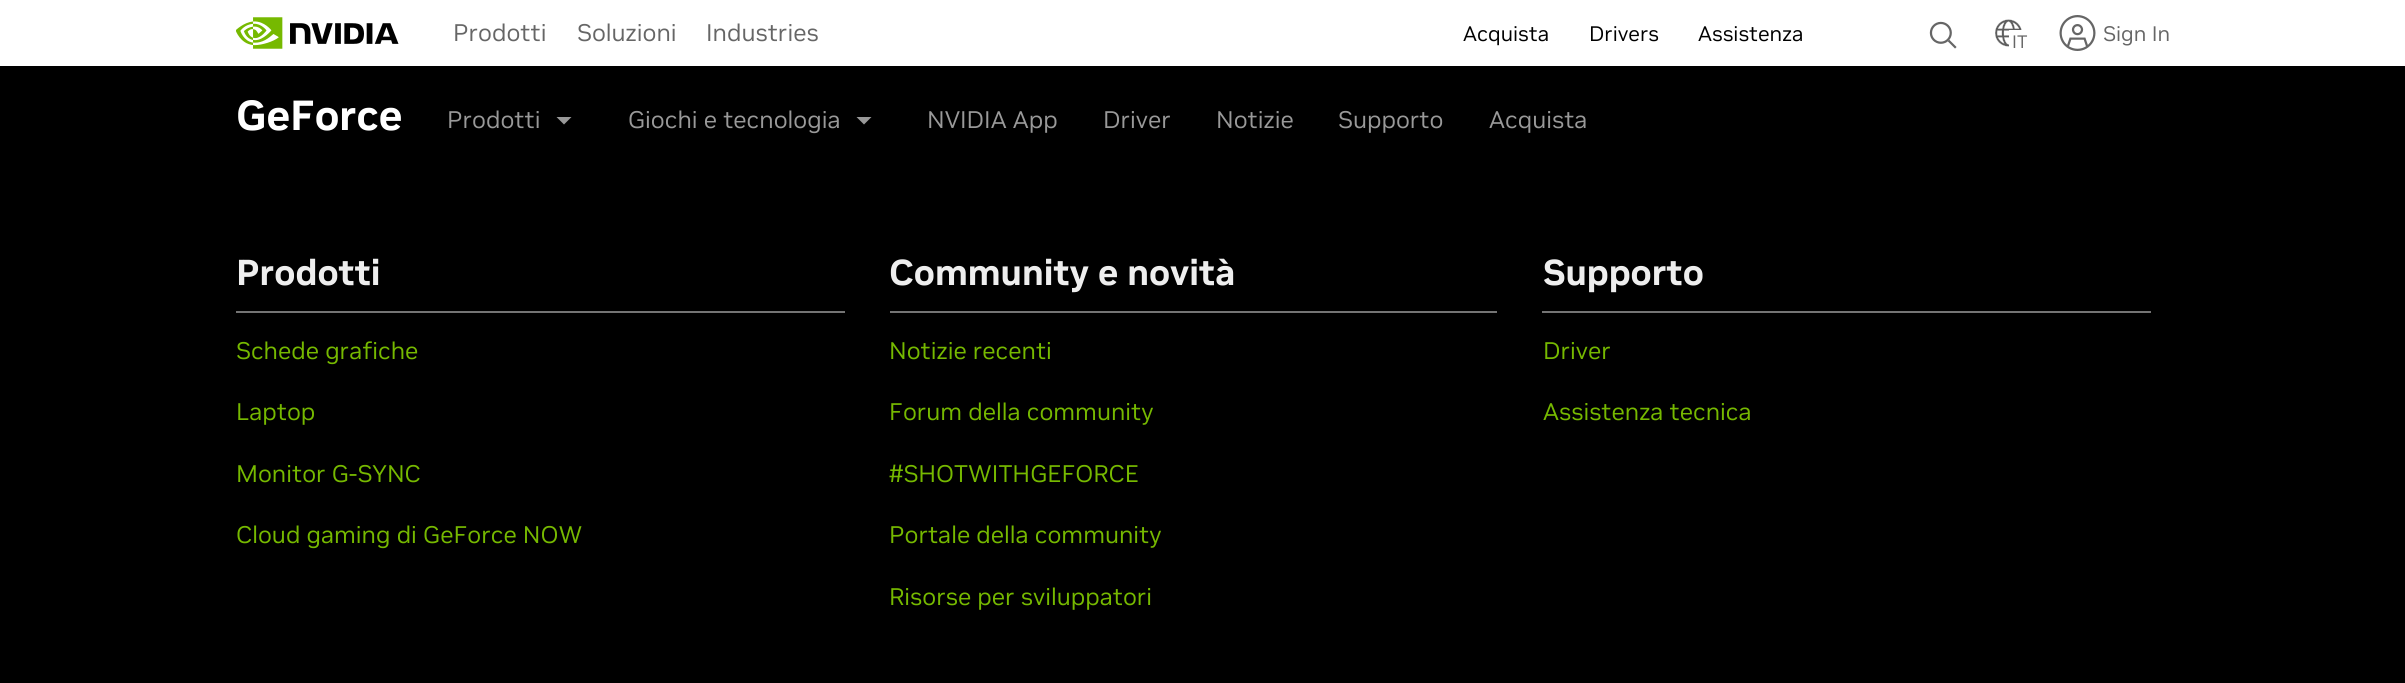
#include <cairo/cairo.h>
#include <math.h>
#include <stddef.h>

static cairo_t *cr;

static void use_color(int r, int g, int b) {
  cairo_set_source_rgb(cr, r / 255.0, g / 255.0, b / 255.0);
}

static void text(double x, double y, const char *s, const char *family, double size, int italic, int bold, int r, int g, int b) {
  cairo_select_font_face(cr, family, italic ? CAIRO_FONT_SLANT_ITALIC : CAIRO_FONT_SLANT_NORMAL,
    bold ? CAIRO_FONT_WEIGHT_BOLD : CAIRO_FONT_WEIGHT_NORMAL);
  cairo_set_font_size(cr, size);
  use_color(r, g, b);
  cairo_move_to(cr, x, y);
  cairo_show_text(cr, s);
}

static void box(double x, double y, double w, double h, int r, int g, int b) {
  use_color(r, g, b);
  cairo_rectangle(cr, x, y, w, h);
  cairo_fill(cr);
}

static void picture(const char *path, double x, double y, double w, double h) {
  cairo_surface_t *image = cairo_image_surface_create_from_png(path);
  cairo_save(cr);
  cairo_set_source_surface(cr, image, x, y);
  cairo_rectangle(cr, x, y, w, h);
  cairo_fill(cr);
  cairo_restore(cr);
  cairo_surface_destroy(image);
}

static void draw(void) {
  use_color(255, 255, 255);
  cairo_paint(cr);
  picture("img_01.png", 236, 17, 163, 32);
  picture("img_02.png", 1929, 21, 28, 28);
  picture("img_03.png", 1995, 19, 27, 28);
  box(2009, 30, 13, 17, 255, 255, 255);
  picture("img_04.png", 2059, 15, 37, 36);
  box(0, 66, 2405, 617, 0, 0, 0);
  use_color(153, 153, 153);
  cairo_new_path(cr);
  cairo_move_to(cr, 556.5, 117);
  cairo_line_to(cr, 564, 124.5);
  cairo_line_to(cr, 571.5, 117);
  cairo_close_path(cr);
  cairo_fill(cr);
  cairo_new_path(cr);
  cairo_move_to(cr, 856.5, 117);
  cairo_line_to(cr, 864, 124.5);
  cairo_line_to(cr, 871.5, 117);
  cairo_close_path(cr);
  cairo_fill(cr);
  box(236, 311, 609, 2, 116, 116, 116);
  box(890, 311, 607, 2, 116, 116, 116);
  box(1542, 311, 609, 2, 116, 116, 116);
  text(453, 41, "Prodotti", "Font", 24, 0, 0, 102, 102, 102);
  text(577, 41, "Soluzioni", "Font", 24, 0, 0, 102, 102, 102);
  text(706, 41, "Industries", "Font", 24, 0, 0, 102, 102, 102);
  text(1463, 41, "Acquista", "Font", 21, 0, 0, 0, 0, 0);
  text(1589, 41, "Drivers", "Font", 21, 0, 0, 0, 0, 0);
  text(1698, 41, "Assistenza", "Font", 21, 0, 0, 0, 0, 0);
  text(2012, 48, "IT", "Font", 18, 0, 0, 102, 102, 102);
  text(2103, 41, "Sign In", "Font", 21, 0, 0, 102, 102, 102);
  text(236, 130, "GeForce", "Font", 42, 0, 1, 255, 255, 255);
  text(447, 128, "Prodotti", "Font", 24, 0, 0, 153, 153, 153);
  text(628, 128, "Giochi e tecnologia", "Font", 24, 0, 0, 153, 153, 153);
  text(927, 128, "NVIDIA App", "Font", 24, 0, 0, 153, 153, 153);
  text(1103, 128, "Driver", "Font", 24, 0, 0, 153, 153, 153);
  text(1216, 128, "Notizie", "Font", 24, 0, 0, 153, 153, 153);
  text(1338, 128, "Supporto", "Font", 24, 0, 0, 153, 153, 153);
  text(1489, 128, "Acquista", "Font", 24, 0, 0, 153, 153, 153);
  text(236, 285, "Prodotti", "Font", 36, 0, 1, 238, 238, 238);
  text(236, 359, "Schede grafiche", "Font", 24, 0, 0, 118, 185, 0);
  text(236, 420, "Laptop", "Font", 24, 0, 0, 118, 185, 0);
  text(236, 482, "Monitor G-SYNC", "Font", 24, 0, 0, 118, 185, 0);
  text(236, 543, "Cloud gaming di GeForce NOW", "Font", 24, 0, 0, 118, 185, 0);
  text(889, 285, "Community e novità", "Font", 36, 0, 1, 238, 238, 238);
  text(889, 359, "Notizie recenti", "Font", 24, 0, 0, 118, 185, 0);
  text(889, 420, "Forum della community", "Font", 24, 0, 0, 118, 185, 0);
  text(889, 482, "#SHOTWITHGEFORCE", "Font", 24, 0, 0, 118, 185, 0);
  text(889, 543, "Portale della community", "Font", 24, 0, 0, 118, 185, 0);
  text(889, 605, "Risorse per sviluppatori", "Font", 24, 0, 0, 118, 185, 0);
  text(1543, 285, "Supporto", "Font", 36, 0, 1, 238, 238, 238);
  text(1543, 359, "Driver", "Font", 24, 0, 0, 118, 185, 0);
  text(1543, 420, "Assistenza tecnica", "Font", 24, 0, 0, 118, 185, 0);
}

int main(void) {
  cairo_surface_t *surface = cairo_image_surface_create(CAIRO_FORMAT_RGB24, 2405, 683);
  cr = cairo_create(surface);
  cairo_font_options_t *options = cairo_font_options_create();
  cairo_font_options_set_hint_metrics(options, CAIRO_HINT_METRICS_OFF);
  cairo_font_options_set_hint_style(options, CAIRO_HINT_STYLE_NONE);
  cairo_set_font_options(cr, options);
  cairo_set_miter_limit(cr, 4);
  draw();
  cairo_surface_write_to_png(surface, "out.png");
  cairo_font_options_destroy(options);
  cairo_destroy(cr);
  cairo_surface_destroy(surface);
  return 0;
}
